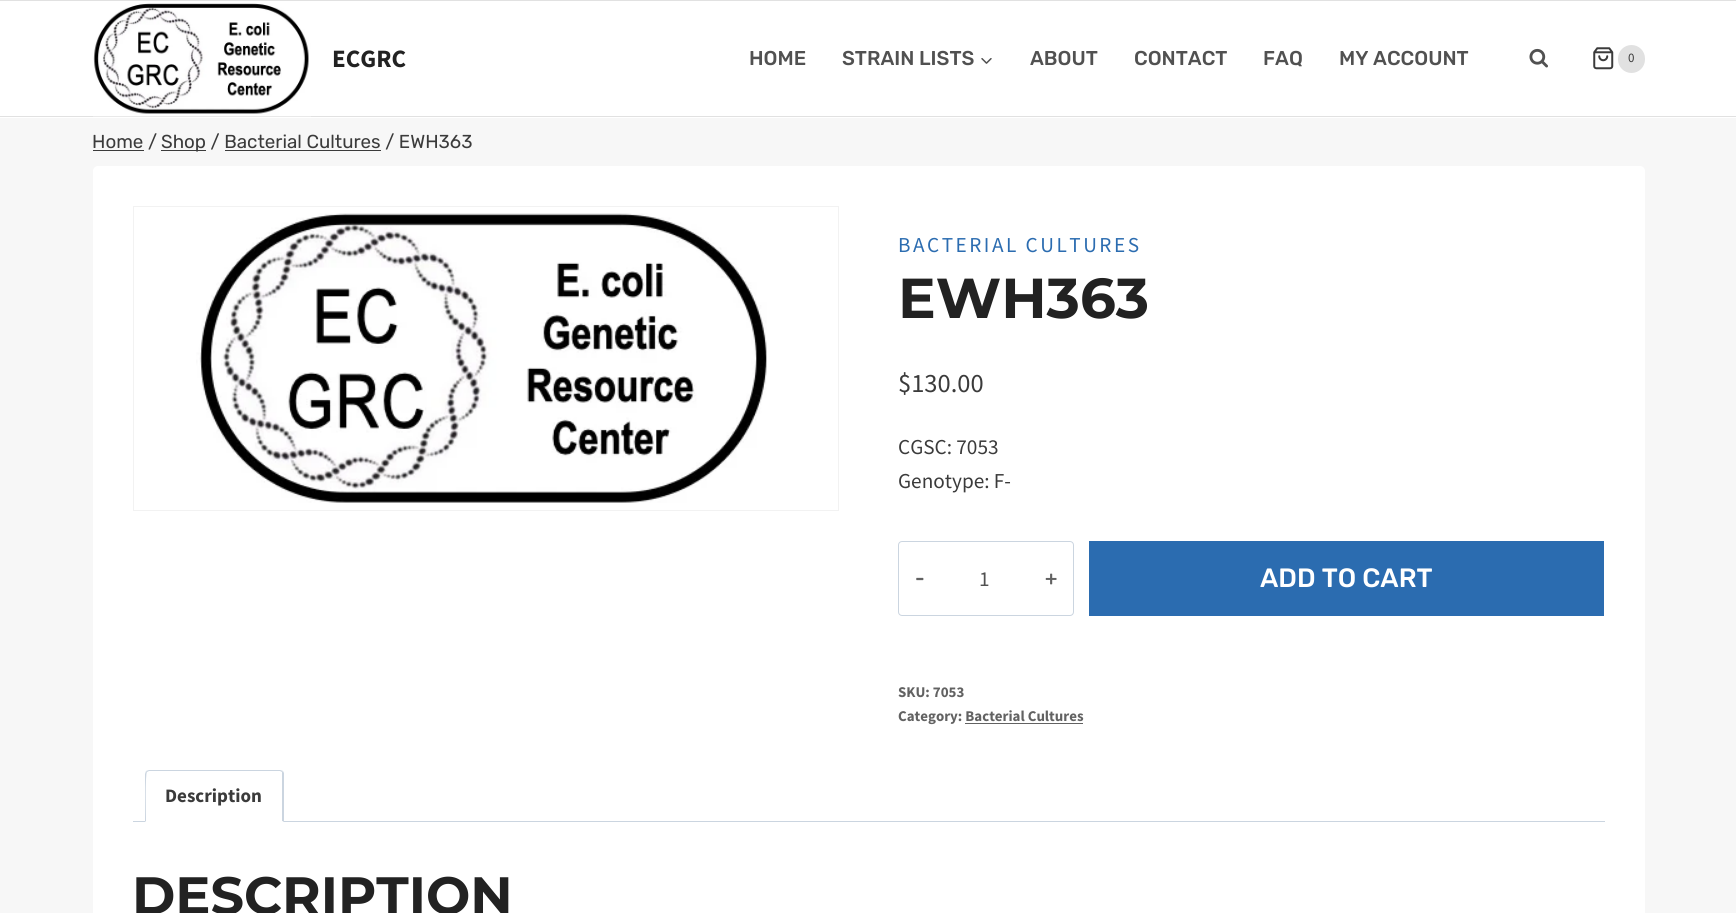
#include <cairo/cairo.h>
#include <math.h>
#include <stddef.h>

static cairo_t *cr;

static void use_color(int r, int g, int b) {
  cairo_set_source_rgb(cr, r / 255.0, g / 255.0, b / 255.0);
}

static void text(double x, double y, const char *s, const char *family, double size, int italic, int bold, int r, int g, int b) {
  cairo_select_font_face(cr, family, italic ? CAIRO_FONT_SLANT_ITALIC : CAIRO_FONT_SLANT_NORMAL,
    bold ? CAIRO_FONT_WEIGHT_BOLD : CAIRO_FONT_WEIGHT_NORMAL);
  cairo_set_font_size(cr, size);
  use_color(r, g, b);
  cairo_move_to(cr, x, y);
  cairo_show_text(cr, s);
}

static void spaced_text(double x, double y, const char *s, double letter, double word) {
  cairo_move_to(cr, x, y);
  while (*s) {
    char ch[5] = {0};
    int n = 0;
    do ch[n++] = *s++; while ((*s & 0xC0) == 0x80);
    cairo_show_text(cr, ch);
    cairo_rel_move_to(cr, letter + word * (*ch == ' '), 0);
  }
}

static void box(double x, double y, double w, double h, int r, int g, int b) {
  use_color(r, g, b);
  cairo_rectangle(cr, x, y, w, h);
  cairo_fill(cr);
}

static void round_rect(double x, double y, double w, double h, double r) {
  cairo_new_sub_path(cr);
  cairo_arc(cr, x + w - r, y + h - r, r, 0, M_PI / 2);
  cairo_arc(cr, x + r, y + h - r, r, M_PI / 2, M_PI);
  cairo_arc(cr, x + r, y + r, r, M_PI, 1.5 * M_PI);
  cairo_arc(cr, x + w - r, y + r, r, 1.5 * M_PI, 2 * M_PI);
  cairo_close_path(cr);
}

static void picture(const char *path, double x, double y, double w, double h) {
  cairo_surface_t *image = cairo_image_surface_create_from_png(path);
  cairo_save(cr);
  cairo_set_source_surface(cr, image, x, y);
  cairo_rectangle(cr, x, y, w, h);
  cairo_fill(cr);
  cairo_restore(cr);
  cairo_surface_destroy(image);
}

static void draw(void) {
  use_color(247, 247, 247);
  cairo_paint(cr);
  box(0, 1, 1736, 117, 255, 255, 255);
  box(0, 0, 1736, 1, 225, 225, 225);
  box(0, 116, 1736, 1, 225, 225, 225);
  picture("img_01.png", 93, 3, 218, 114);
  picture("img_02.png", 981, 58, 11, 6);
  picture("img_03.png", 1529, 48, 19, 20);
  picture("img_04.png", 1593, 47, 21, 23);
  round_rect(1618, 45, 27, 28, 13.5);
  cairo_fill(cr);
  box(93, 150, 51, 1, 59, 59, 59);
  box(161, 150, 45, 1, 59, 59, 59);
  box(225, 150, 156, 1, 59, 59, 59);
  use_color(255, 255, 255);
  round_rect(93, 166, 1552, 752, 5);
  cairo_fill(cr);
  cairo_rectangle(cr, 133.5, 206.5, 705, 304);
  use_color(242, 242, 242);
  cairo_set_line_width(cr, 1);
  cairo_stroke(cr);
  picture("img_05.png", 196, 213, 571, 290);
  round_rect(898.5, 541.5, 175, 74, 3.5);
  use_color(203, 213, 224);
  cairo_stroke(cr);
  box(1089, 541, 515, 75, 43, 108, 176);
  box(965, 723, 118, 1, 98, 98, 98);
  box(133, 821, 1472, 1, 203, 213, 224);
  use_color(255, 255, 255);
  cairo_new_path(cr);
  cairo_move_to(cr, 149, 770);
  cairo_line_to(cr, 280, 770);
  cairo_curve_to(cr, 282, 770, 284, 772, 284, 774);
  cairo_line_to(cr, 284, 823);
  cairo_line_to(cr, 145, 823);
  cairo_line_to(cr, 145, 774);
  cairo_curve_to(cr, 145, 772, 147, 770, 149, 770);
  cairo_close_path(cr);
  cairo_fill(cr);
  use_color(203, 213, 224);
  cairo_new_path(cr);
  cairo_move_to(cr, 149, 770);
  cairo_line_to(cr, 146, 771);
  cairo_line_to(cr, 147, 772);
  cairo_line_to(cr, 149, 771);
  cairo_line_to(cr, 280, 771);
  cairo_line_to(cr, 282, 772);
  cairo_line_to(cr, 283, 771);
  cairo_line_to(cr, 280, 770);
  cairo_close_path(cr);
  cairo_fill(cr);
  cairo_new_path(cr);
  cairo_move_to(cr, 284, 822);
  cairo_line_to(cr, 282, 821);
  cairo_line_to(cr, 282, 772);
  cairo_line_to(cr, 283, 771);
  cairo_line_to(cr, 284, 773);
  cairo_close_path(cr);
  cairo_fill(cr);
  use_color(255, 255, 255);
  cairo_new_path(cr);
  cairo_move_to(cr, 283, 822);
  cairo_line_to(cr, 146, 822);
  cairo_line_to(cr, 146, 821);
  cairo_line_to(cr, 282, 821);
  cairo_close_path(cr);
  cairo_fill(cr);
  use_color(203, 213, 224);
  cairo_new_path(cr);
  cairo_move_to(cr, 145, 774);
  cairo_line_to(cr, 145, 822);
  cairo_line_to(cr, 146, 821);
  cairo_curve_to(cr, 146, 815, 145, 774, 147, 772);
  cairo_line_to(cr, 146, 771);
  cairo_close_path(cr);
  cairo_fill(cr);
  text(332, 67, "ECGRC", "Source Sans Pro", 25, 0, 1, 34, 34, 34);
  text(749, 65, "HOME", "Rubik Medium", 20, 0, 0, 81, 81, 81);
  text(842, 65, "STRAIN LISTS", "Rubik Medium", 20, 0, 0, 81, 81, 81);
  text(1030, 65, "ABOUT", "Rubik Medium", 20, 0, 0, 81, 81, 81);
  text(1134, 65, "CONTACT", "Rubik Medium", 20, 0, 0, 81, 81, 81);
  text(1263, 65, "FAQ", "Rubik Medium", 20, 0, 0, 81, 81, 81);
  text(1339, 65, "MY ACCOUNT", "Rubik Medium", 20, 0, 0, 81, 81, 81);
  text(1628, 62, "0", "Source Sans Pro", 13, 0, 0, 59, 59, 59);
  text(92, 148, "Home /", "Rubik", 18.75, 0, 0, 59, 59, 59);
  text(161, 148, "Shop / Bacterial Cultures / EWH363", "Rubik", 18.75, 0, 0, 59, 59, 59);
  cairo_select_font_face(cr, "Source Sans Pro", CAIRO_FONT_SLANT_NORMAL, CAIRO_FONT_WEIGHT_NORMAL);
  cairo_set_font_size(cr, 21.25);
  use_color(43, 108, 176);
  spaced_text(898, 252, "BACTERIAL CULTURES", 2.5, 0);
  text(898, 318, "EWH363", "Montserrat Thin", 56.25, 0, 0, 34, 34, 34);
  text(898, 392, "$130.00", "Source Sans Pro", 26.5, 0, 0, 59, 59, 59);
  text(898, 454, "CGSC: 7053", "Source Sans Pro", 21.25, 0, 0, 59, 59, 59);
  text(898, 488, "Genotype: F-", "Source Sans Pro", 21.25, 0, 0, 59, 59, 59);
  text(915, 585, "-", "Rubik Medium", 20, 0, 0, 98, 98, 98);
  text(979, 586, "1", "Source Sans Pro", 21.25, 0, 0, 81, 81, 81);
  text(1045, 585, "+", "Rubik Medium", 20, 0, 0, 98, 98, 98);
  text(1260, 587, "ADD TO CART", "Rubik Medium", 26.5, 0, 0, 255, 255, 255);
  text(898, 697, "SKU: 7053", "Source Sans Pro", 14.9, 0, 1, 98, 98, 98);
  text(898, 721, "Category: Bacterial Cultures", "Source Sans Pro", 14.9, 0, 1, 98, 98, 98);
  text(165, 802, "Description", "Source Sans Pro", 19, 0, 1, 59, 59, 59);
  text(132, 914, "DESCRIPTION", "Montserrat Thin", 52.5, 0, 0, 34, 34, 34);
}

int main(void) {
  cairo_surface_t *surface = cairo_image_surface_create(CAIRO_FORMAT_RGB24, 1736, 913);
  cr = cairo_create(surface);
  cairo_font_options_t *options = cairo_font_options_create();
  cairo_font_options_set_hint_metrics(options, CAIRO_HINT_METRICS_OFF);
  cairo_font_options_set_hint_style(options, CAIRO_HINT_STYLE_NONE);
  cairo_set_font_options(cr, options);
  cairo_set_miter_limit(cr, 4);
  draw();
  cairo_surface_write_to_png(surface, "out.png");
  cairo_font_options_destroy(options);
  cairo_destroy(cr);
  cairo_surface_destroy(surface);
  return 0;
}
